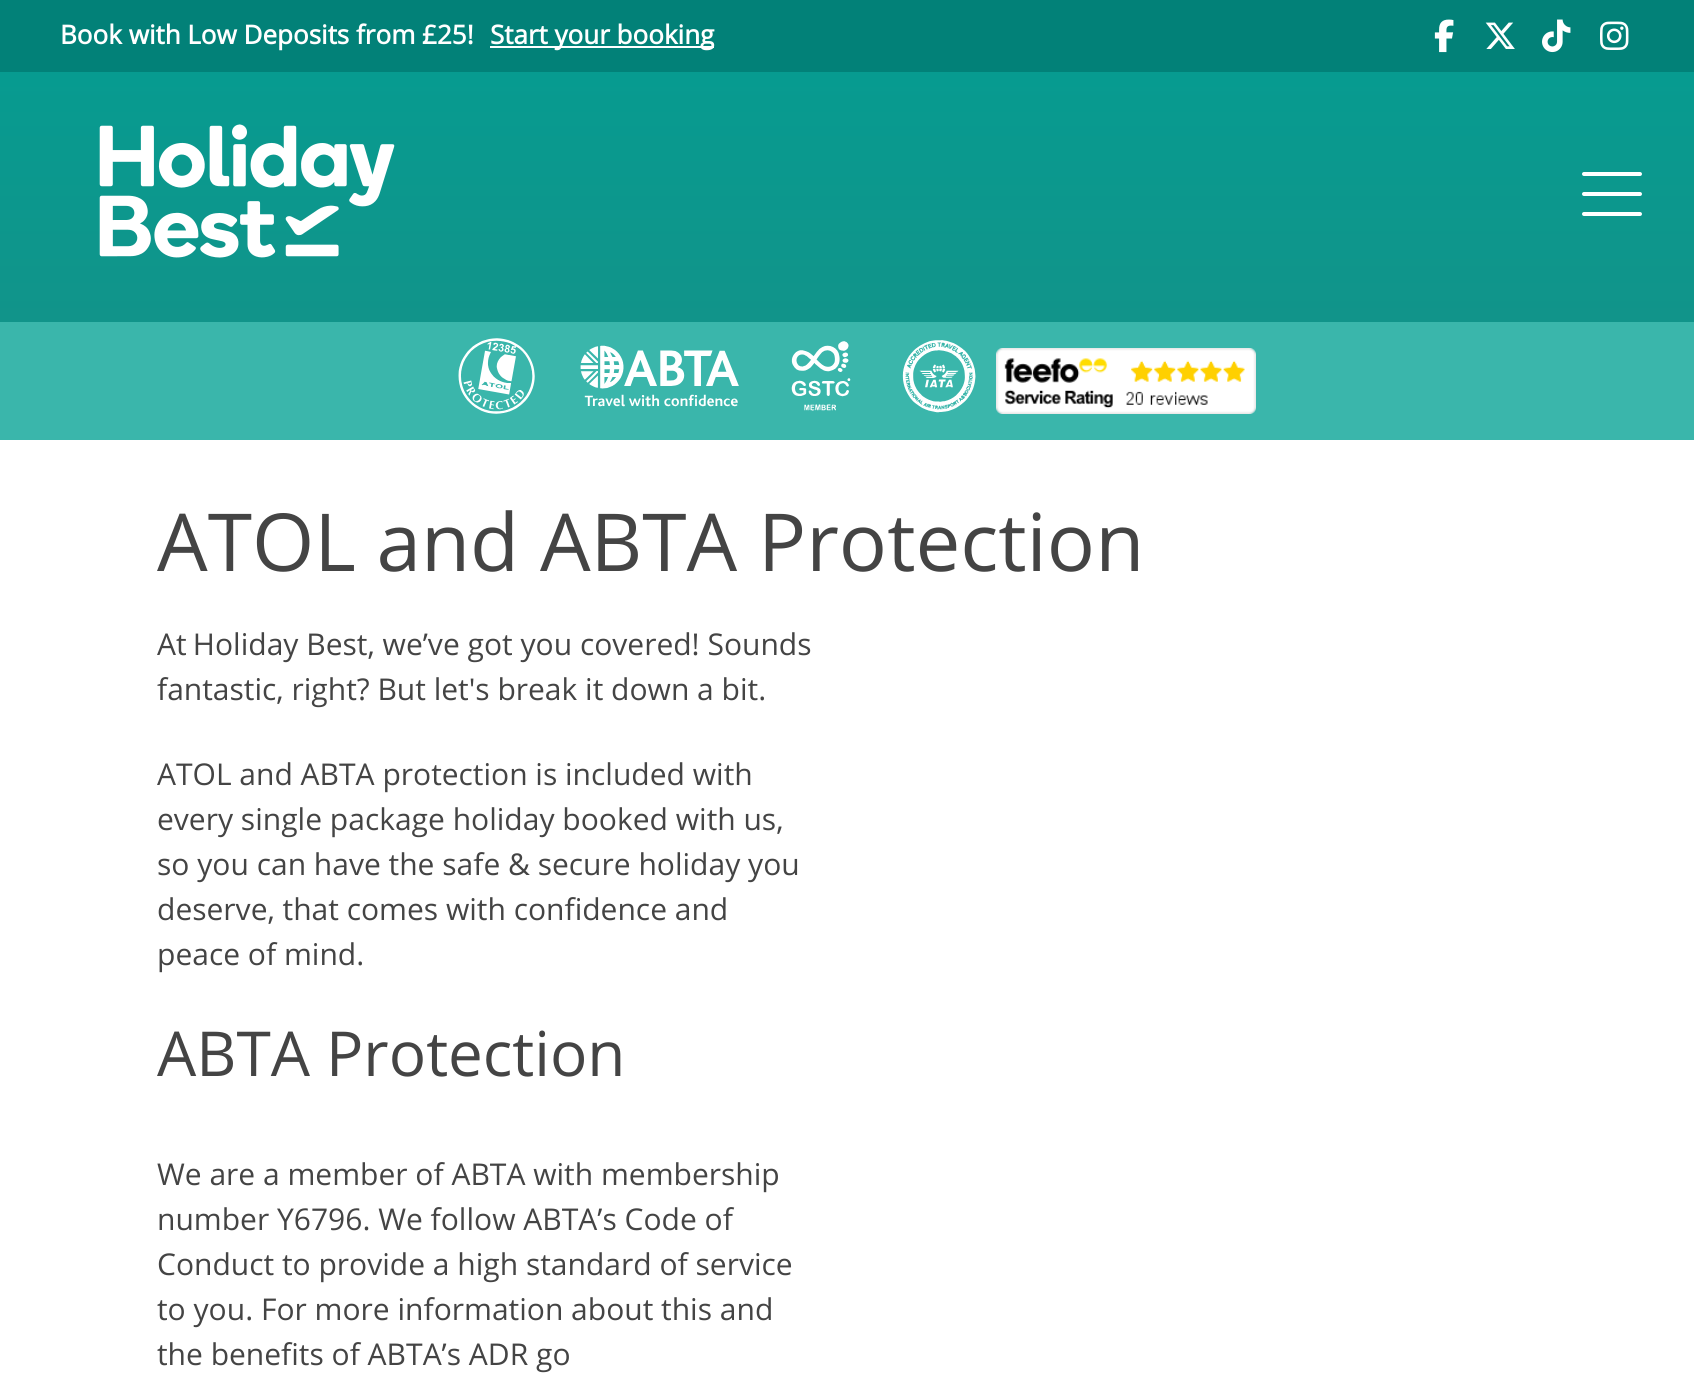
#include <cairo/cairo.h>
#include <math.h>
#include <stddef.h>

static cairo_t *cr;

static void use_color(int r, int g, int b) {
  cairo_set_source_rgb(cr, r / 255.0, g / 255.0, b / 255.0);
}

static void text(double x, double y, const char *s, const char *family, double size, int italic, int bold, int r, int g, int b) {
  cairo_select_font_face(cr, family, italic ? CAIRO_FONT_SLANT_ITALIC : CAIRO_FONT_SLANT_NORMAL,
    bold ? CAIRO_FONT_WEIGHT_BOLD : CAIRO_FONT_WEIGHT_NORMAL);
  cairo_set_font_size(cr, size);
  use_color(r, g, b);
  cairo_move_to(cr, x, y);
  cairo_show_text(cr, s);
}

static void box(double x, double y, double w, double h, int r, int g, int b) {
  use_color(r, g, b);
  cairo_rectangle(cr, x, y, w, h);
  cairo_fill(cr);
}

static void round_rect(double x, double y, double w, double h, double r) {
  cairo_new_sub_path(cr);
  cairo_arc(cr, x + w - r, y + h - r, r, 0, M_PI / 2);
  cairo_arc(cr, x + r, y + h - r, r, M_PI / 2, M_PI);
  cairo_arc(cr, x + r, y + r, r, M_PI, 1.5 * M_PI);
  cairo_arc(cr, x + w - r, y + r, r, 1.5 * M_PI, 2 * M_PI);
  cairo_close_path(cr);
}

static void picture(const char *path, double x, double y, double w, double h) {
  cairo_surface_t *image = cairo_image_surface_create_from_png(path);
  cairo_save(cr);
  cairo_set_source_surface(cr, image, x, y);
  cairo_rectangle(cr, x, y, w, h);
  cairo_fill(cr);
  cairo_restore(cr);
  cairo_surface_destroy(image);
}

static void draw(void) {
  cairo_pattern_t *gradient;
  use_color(255, 255, 255);
  cairo_paint(cr);
  box(0, 0, 1694, 72, 2, 129, 120);
  box(490, 46, 224, 2, 255, 255, 255);
  picture("img_01.png", 1434, 19, 20, 34);
  picture("img_02.png", 1485, 22, 30, 27);
  picture("img_03.png", 1542, 19, 29, 34);
  picture("img_04.png", 1600, 21, 29, 29);
  gradient = cairo_pattern_create_linear(847, 72, 847, 322);
  cairo_pattern_add_color_stop_rgba(gradient, 0, 0.027, 0.608, 0.565, 1);
  cairo_pattern_add_color_stop_rgba(gradient, 1, 0.067, 0.58, 0.541, 1);
  cairo_set_source(cr, gradient);
  cairo_pattern_destroy(gradient);
  cairo_rectangle(cr, 0, 72, 1694, 250);
  cairo_fill(cr);
  picture("img_05.png", 99, 124, 296, 134);
  use_color(255, 255, 255);
  round_rect(1582, 212, 60, 4, 2);
  cairo_fill(cr);
  round_rect(1582, 172, 60, 4, 2);
  cairo_fill(cr);
  round_rect(1582, 192, 60, 4, 2);
  cairo_fill(cr);
  box(0, 322, 1694, 118, 58, 182, 171);
  picture("img_06.png", 458, 338, 518, 76);
  picture("img_07.png", 996, 348, 260, 66);
  text(60, 44, "Book with Low Deposits from £25!", "Open Sans", 26, 0, 1, 255, 255, 255);
  text(490, 44, "Start your booking", "Open Sans", 26, 0, 1, 255, 255, 255);
  text(157, 571, "ATOL and ABTA Protection", "Open Sans", 80, 0, 0, 68, 68, 68);
  text(157, 655, "At Holiday Best, we’ve got you covered! Sounds", "Open Sans", 30, 0, 0, 68, 68, 68);
  text(157, 700, "fantastic, right? But let's break it down a bit.", "Open Sans", 30, 0, 0, 68, 68, 68);
  text(157, 785, "ATOL and ABTA protection is included with", "Open Sans", 30, 0, 0, 68, 68, 68);
  text(157, 830, "every single package holiday booked with us,", "Open Sans", 30, 0, 0, 68, 68, 68);
  text(157, 875, "so you can have the safe & secure holiday you", "Open Sans", 30, 0, 0, 68, 68, 68);
  text(157, 920, "deserve, that comes with confidence and", "Open Sans", 30, 0, 0, 68, 68, 68);
  text(157, 965, "peace of mind.", "Open Sans", 30, 0, 0, 68, 68, 68);
  text(157, 1076, "ABTA Protection", "Open Sans", 62, 0, 0, 68, 68, 68);
  text(157, 1185, "We are a member of ABTA with membership", "Open Sans", 30, 0, 0, 68, 68, 68);
  text(157, 1230, "number Y6796. We follow ABTA’s Code of", "Open Sans", 30, 0, 0, 68, 68, 68);
  text(157, 1275, "Conduct to provide a high standard of service", "Open Sans", 30, 0, 0, 68, 68, 68);
  text(157, 1320, "to you. For more information about this and", "Open Sans", 30, 0, 0, 68, 68, 68);
  text(157, 1365, "the benefits of ABTA’s ADR go", "Open Sans", 30, 0, 0, 68, 68, 68);
}

int main(void) {
  cairo_surface_t *surface = cairo_image_surface_create(CAIRO_FORMAT_RGB24, 1694, 1397);
  cr = cairo_create(surface);
  cairo_font_options_t *options = cairo_font_options_create();
  cairo_font_options_set_hint_metrics(options, CAIRO_HINT_METRICS_OFF);
  cairo_font_options_set_hint_style(options, CAIRO_HINT_STYLE_NONE);
  cairo_set_font_options(cr, options);
  cairo_set_miter_limit(cr, 4);
  draw();
  cairo_surface_write_to_png(surface, "out.png");
  cairo_font_options_destroy(options);
  cairo_destroy(cr);
  cairo_surface_destroy(surface);
  return 0;
}
